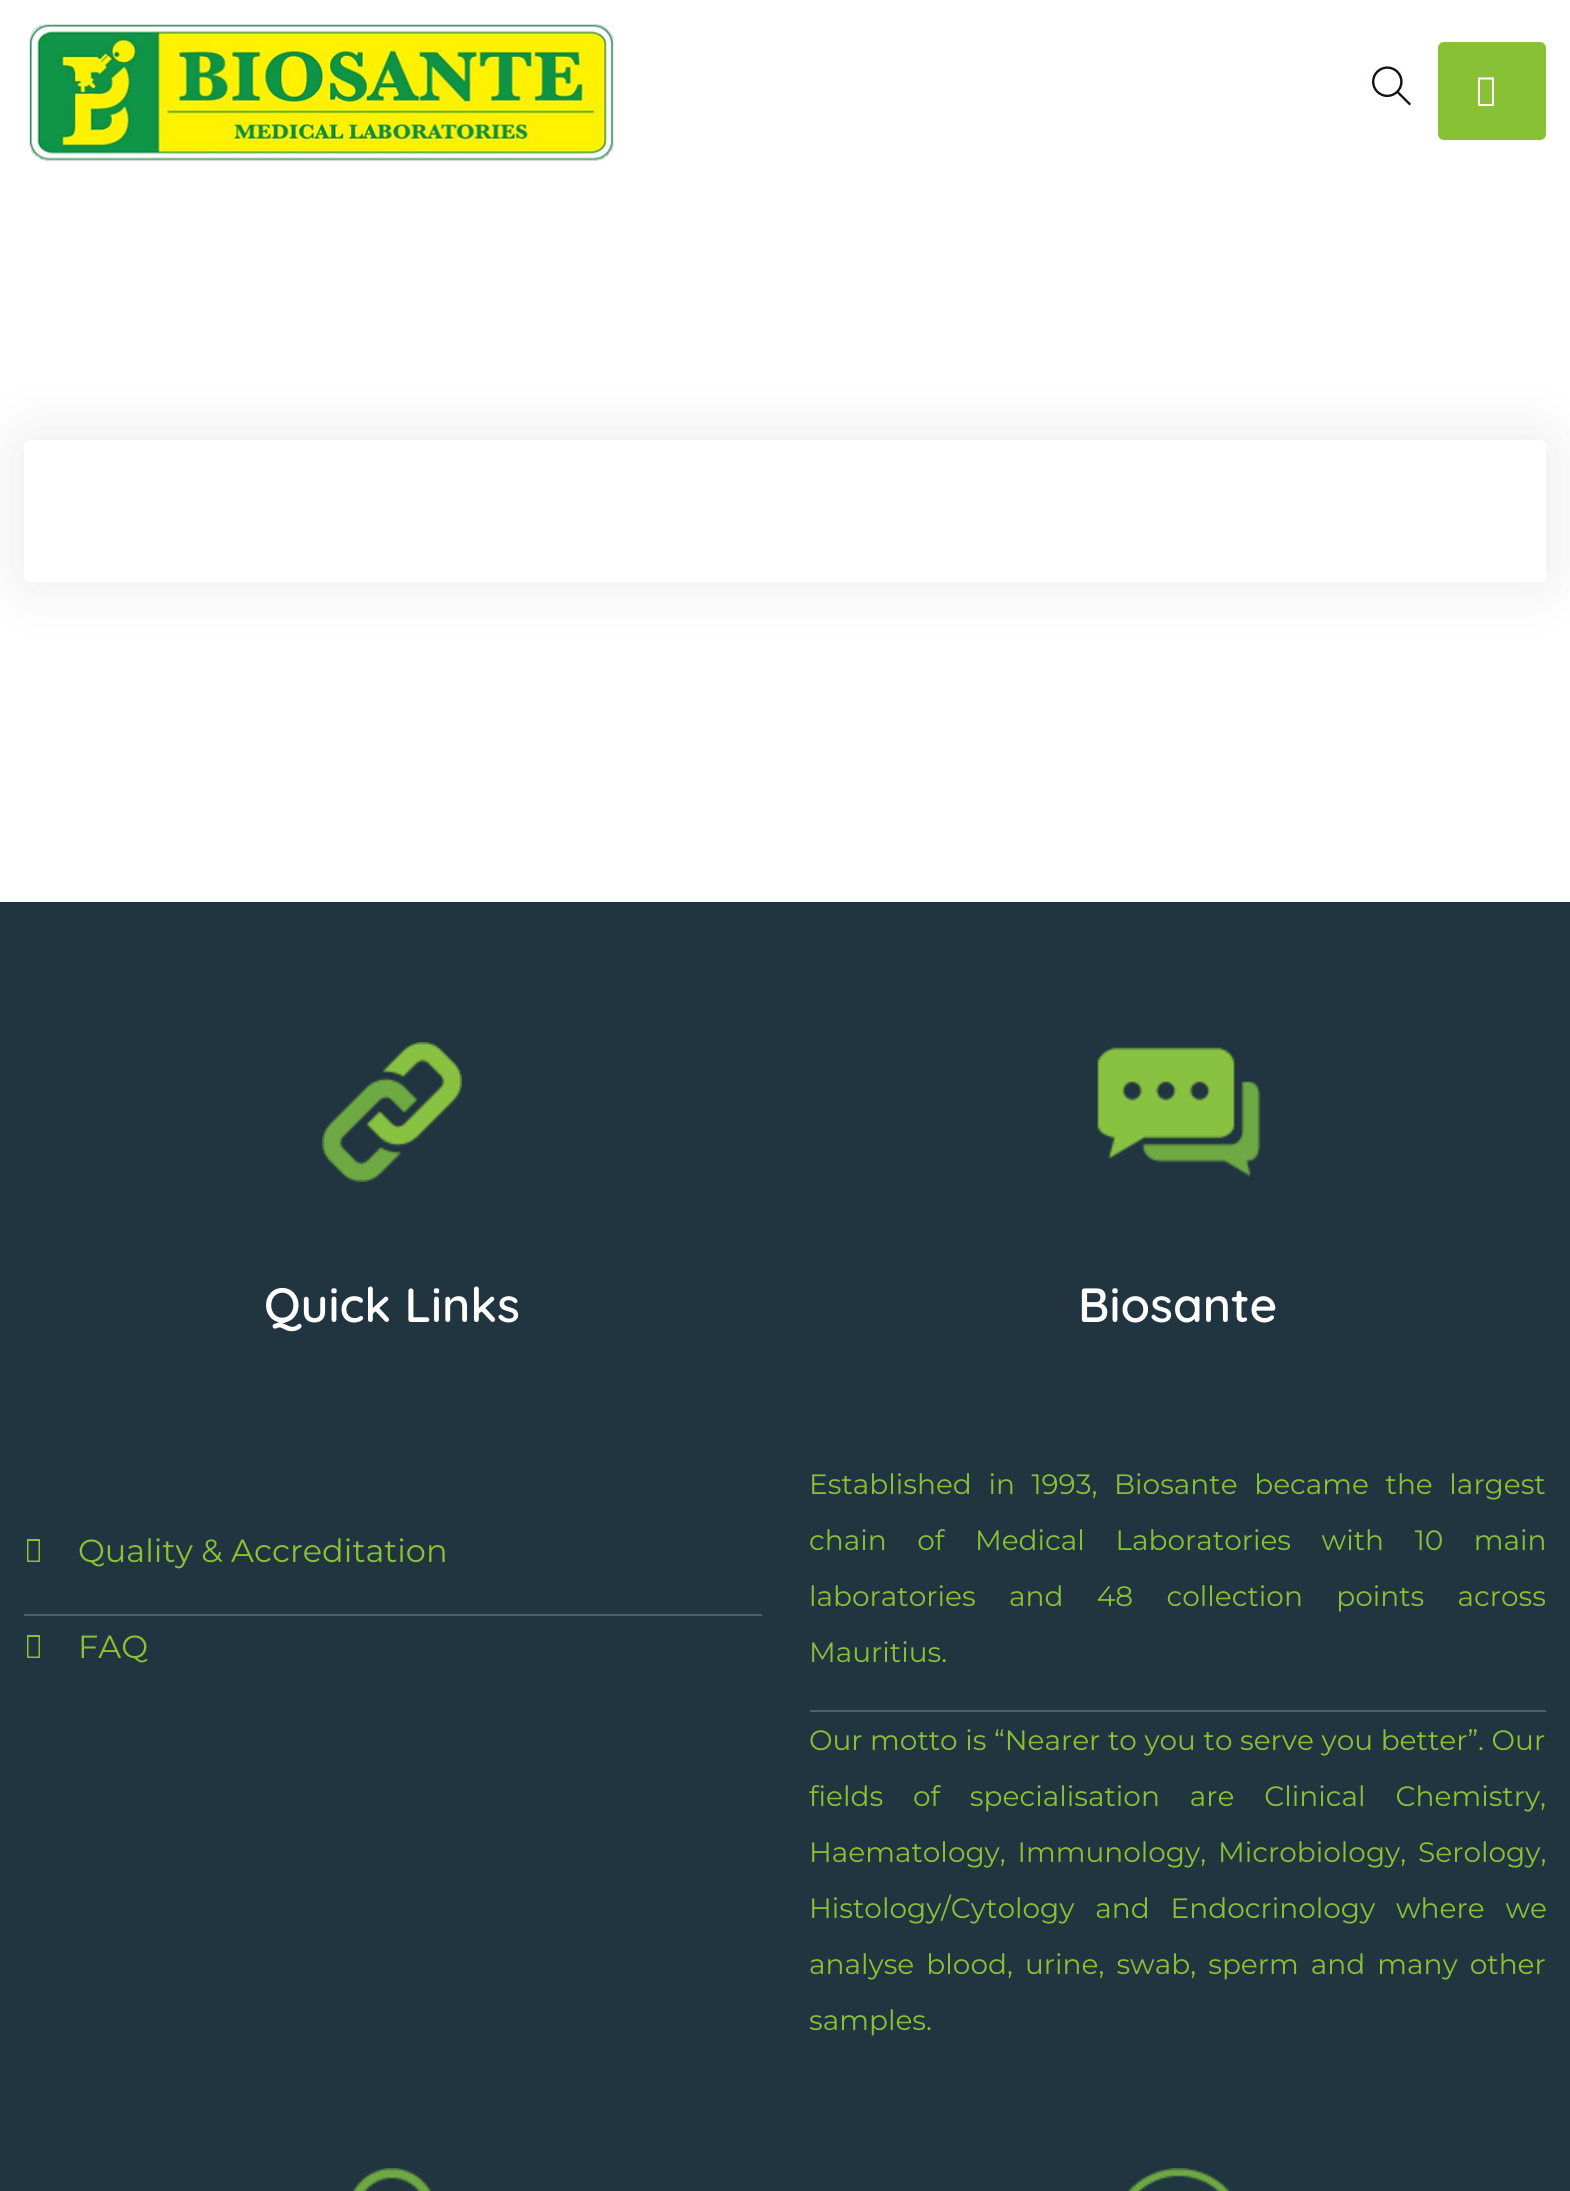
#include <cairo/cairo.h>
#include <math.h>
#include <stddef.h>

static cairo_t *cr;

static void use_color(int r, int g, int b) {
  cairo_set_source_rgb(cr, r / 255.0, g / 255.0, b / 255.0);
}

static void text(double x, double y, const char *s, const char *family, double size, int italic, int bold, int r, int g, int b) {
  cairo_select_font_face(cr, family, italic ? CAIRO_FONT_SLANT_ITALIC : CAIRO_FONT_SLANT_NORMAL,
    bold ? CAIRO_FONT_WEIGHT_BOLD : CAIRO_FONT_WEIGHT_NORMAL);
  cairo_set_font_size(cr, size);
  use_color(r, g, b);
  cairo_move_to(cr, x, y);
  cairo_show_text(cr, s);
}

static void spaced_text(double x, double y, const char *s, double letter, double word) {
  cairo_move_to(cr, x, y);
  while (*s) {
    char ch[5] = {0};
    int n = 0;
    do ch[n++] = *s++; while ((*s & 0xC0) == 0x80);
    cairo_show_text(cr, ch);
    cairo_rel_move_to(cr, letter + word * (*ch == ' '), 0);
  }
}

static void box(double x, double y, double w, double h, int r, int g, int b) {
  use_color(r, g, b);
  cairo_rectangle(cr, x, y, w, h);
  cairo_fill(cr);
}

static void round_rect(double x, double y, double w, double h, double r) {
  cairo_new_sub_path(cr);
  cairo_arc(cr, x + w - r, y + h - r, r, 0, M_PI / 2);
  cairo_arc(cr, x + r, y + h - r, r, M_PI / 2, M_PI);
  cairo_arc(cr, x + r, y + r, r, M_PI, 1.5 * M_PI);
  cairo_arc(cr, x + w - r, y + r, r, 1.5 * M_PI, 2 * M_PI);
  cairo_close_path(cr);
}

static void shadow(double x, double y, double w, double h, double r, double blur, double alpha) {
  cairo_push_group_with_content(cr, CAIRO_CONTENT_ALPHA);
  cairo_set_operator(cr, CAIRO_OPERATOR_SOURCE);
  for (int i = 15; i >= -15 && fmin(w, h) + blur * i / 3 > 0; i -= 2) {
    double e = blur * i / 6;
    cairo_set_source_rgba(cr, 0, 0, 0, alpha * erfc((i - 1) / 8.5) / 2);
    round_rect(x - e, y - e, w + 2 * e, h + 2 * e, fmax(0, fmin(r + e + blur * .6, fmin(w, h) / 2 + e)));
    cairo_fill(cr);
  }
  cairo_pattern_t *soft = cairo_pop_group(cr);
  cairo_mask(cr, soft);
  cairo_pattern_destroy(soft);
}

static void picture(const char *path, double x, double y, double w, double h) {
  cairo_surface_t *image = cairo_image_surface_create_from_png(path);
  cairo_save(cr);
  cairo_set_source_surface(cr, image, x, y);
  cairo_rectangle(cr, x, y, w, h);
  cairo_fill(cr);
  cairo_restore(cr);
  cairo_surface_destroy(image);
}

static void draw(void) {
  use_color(255, 255, 255);
  cairo_paint(cr);
  picture("img_01.png", 29, 23, 585, 139);
  picture("img_02.png", 1372, 66, 39, 40);
  use_color(136, 193, 54);
  round_rect(1438, 42, 108, 98, 6);
  cairo_fill(cr);
  use_color(255, 255, 255);
  cairo_new_path(cr);
  cairo_move_to(cr, 1478, 106);
  cairo_line_to(cr, 1478, 77.5);
  cairo_line_to(cr, 1494, 77.5);
  cairo_line_to(cr, 1494, 106);
  cairo_close_path(cr);
  cairo_move_to(cr, 1480, 104);
  cairo_line_to(cr, 1492, 104);
  cairo_line_to(cr, 1492, 79.5);
  cairo_line_to(cr, 1480, 79.5);
  cairo_close_path(cr);
  cairo_fill(cr);
  use_color(0, 20, 9);
  shadow(24, 440, 1522, 142, 6, 30, 0.1);
  use_color(255, 255, 255);
  round_rect(24, 440, 1522, 142, 6);
  cairo_fill(cr);
  box(0, 902, 1570, 1289, 33, 53, 64);
  picture("img_03.png", 322, 1042, 140, 140);
  use_color(136, 193, 54);
  cairo_new_path(cr);
  cairo_move_to(cr, 27, 1562);
  cairo_line_to(cr, 27, 1539);
  cairo_line_to(cr, 40, 1539);
  cairo_line_to(cr, 40, 1562);
  cairo_close_path(cr);
  cairo_move_to(cr, 28.5, 1560.5);
  cairo_line_to(cr, 38.5, 1560.5);
  cairo_line_to(cr, 38.5, 1541);
  cairo_line_to(cr, 28.5, 1541);
  cairo_close_path(cr);
  cairo_fill(cr);
  box(24, 1614, 738, 2, 81, 96, 104);
  use_color(136, 193, 54);
  cairo_new_path(cr);
  cairo_move_to(cr, 27, 1658);
  cairo_line_to(cr, 27, 1635);
  cairo_line_to(cr, 40, 1635);
  cairo_line_to(cr, 40, 1658);
  cairo_close_path(cr);
  cairo_move_to(cr, 28.5, 1656.5);
  cairo_line_to(cr, 38.5, 1656.5);
  cairo_line_to(cr, 38.5, 1637);
  cairo_line_to(cr, 28.5, 1637);
  cairo_close_path(cr);
  cairo_fill(cr);
  picture("img_04.png", 1097, 1047, 164, 130);
  box(810, 1710, 736, 2, 81, 96, 104);
  picture("img_05.png", 352, 2168, 80, 23);
  picture("img_06.png", 1127, 2168, 104, 23);
  text(264, 1322, "Quick Links", "Quicksand SemiBold", 48, 0, 0, 255, 255, 255);
  text(78, 1562, "Quality & Accreditation", "Montserrat", 32, 0, 0, 136, 193, 54);
  text(78, 1658, "FAQ", "Montserrat", 32, 0, 0, 136, 193, 54);
  text(1078, 1322, "Biosante", "Quicksand SemiBold", 48, 0, 0, 255, 255, 255);
  cairo_select_font_face(cr, "Montserrat", CAIRO_FONT_SLANT_NORMAL, CAIRO_FONT_WEIGHT_NORMAL);
  cairo_set_font_size(cr, 28);
  use_color(136, 193, 54);
  spaced_text(809, 1494, "Established in 1993, Biosante became the largest", 0, 9.25);
  spaced_text(809, 1550, "chain of Medical Laboratories with 10 main", 0, 23.25);
  spaced_text(809, 1606, "laboratories and 48 collection points across", 0, 26);
  text(809, 1662, "Mauritius.", "Montserrat", 28, 0, 0, 136, 193, 54);
  spaced_text(809, 1750, "Our motto is “Nearer to you to serve you better”. Our", 0, 0.25);
  spaced_text(809, 1806, "fields of specialisation are Clinical Chemistry,", 0, 22.5);
  spaced_text(809, 1862, "Haematology, Immunology, Microbiology, Serology,", 0, 4.5);
  spaced_text(809, 1918, "Histology/Cytology and Endocrinology where we", 0, 13.5);
  spaced_text(809, 1974, "analyse blood, urine, swab, sperm and many other", 0, 4.75);
  text(809, 2030, "samples.", "Montserrat", 28, 0, 0, 136, 193, 54);
}

int main(void) {
  cairo_surface_t *surface = cairo_image_surface_create(CAIRO_FORMAT_RGB24, 1570, 2191);
  cr = cairo_create(surface);
  cairo_font_options_t *options = cairo_font_options_create();
  cairo_font_options_set_hint_metrics(options, CAIRO_HINT_METRICS_OFF);
  cairo_font_options_set_hint_style(options, CAIRO_HINT_STYLE_NONE);
  cairo_set_font_options(cr, options);
  cairo_set_miter_limit(cr, 4);
  draw();
  cairo_surface_write_to_png(surface, "out.png");
  cairo_font_options_destroy(options);
  cairo_destroy(cr);
  cairo_surface_destroy(surface);
  return 0;
}
